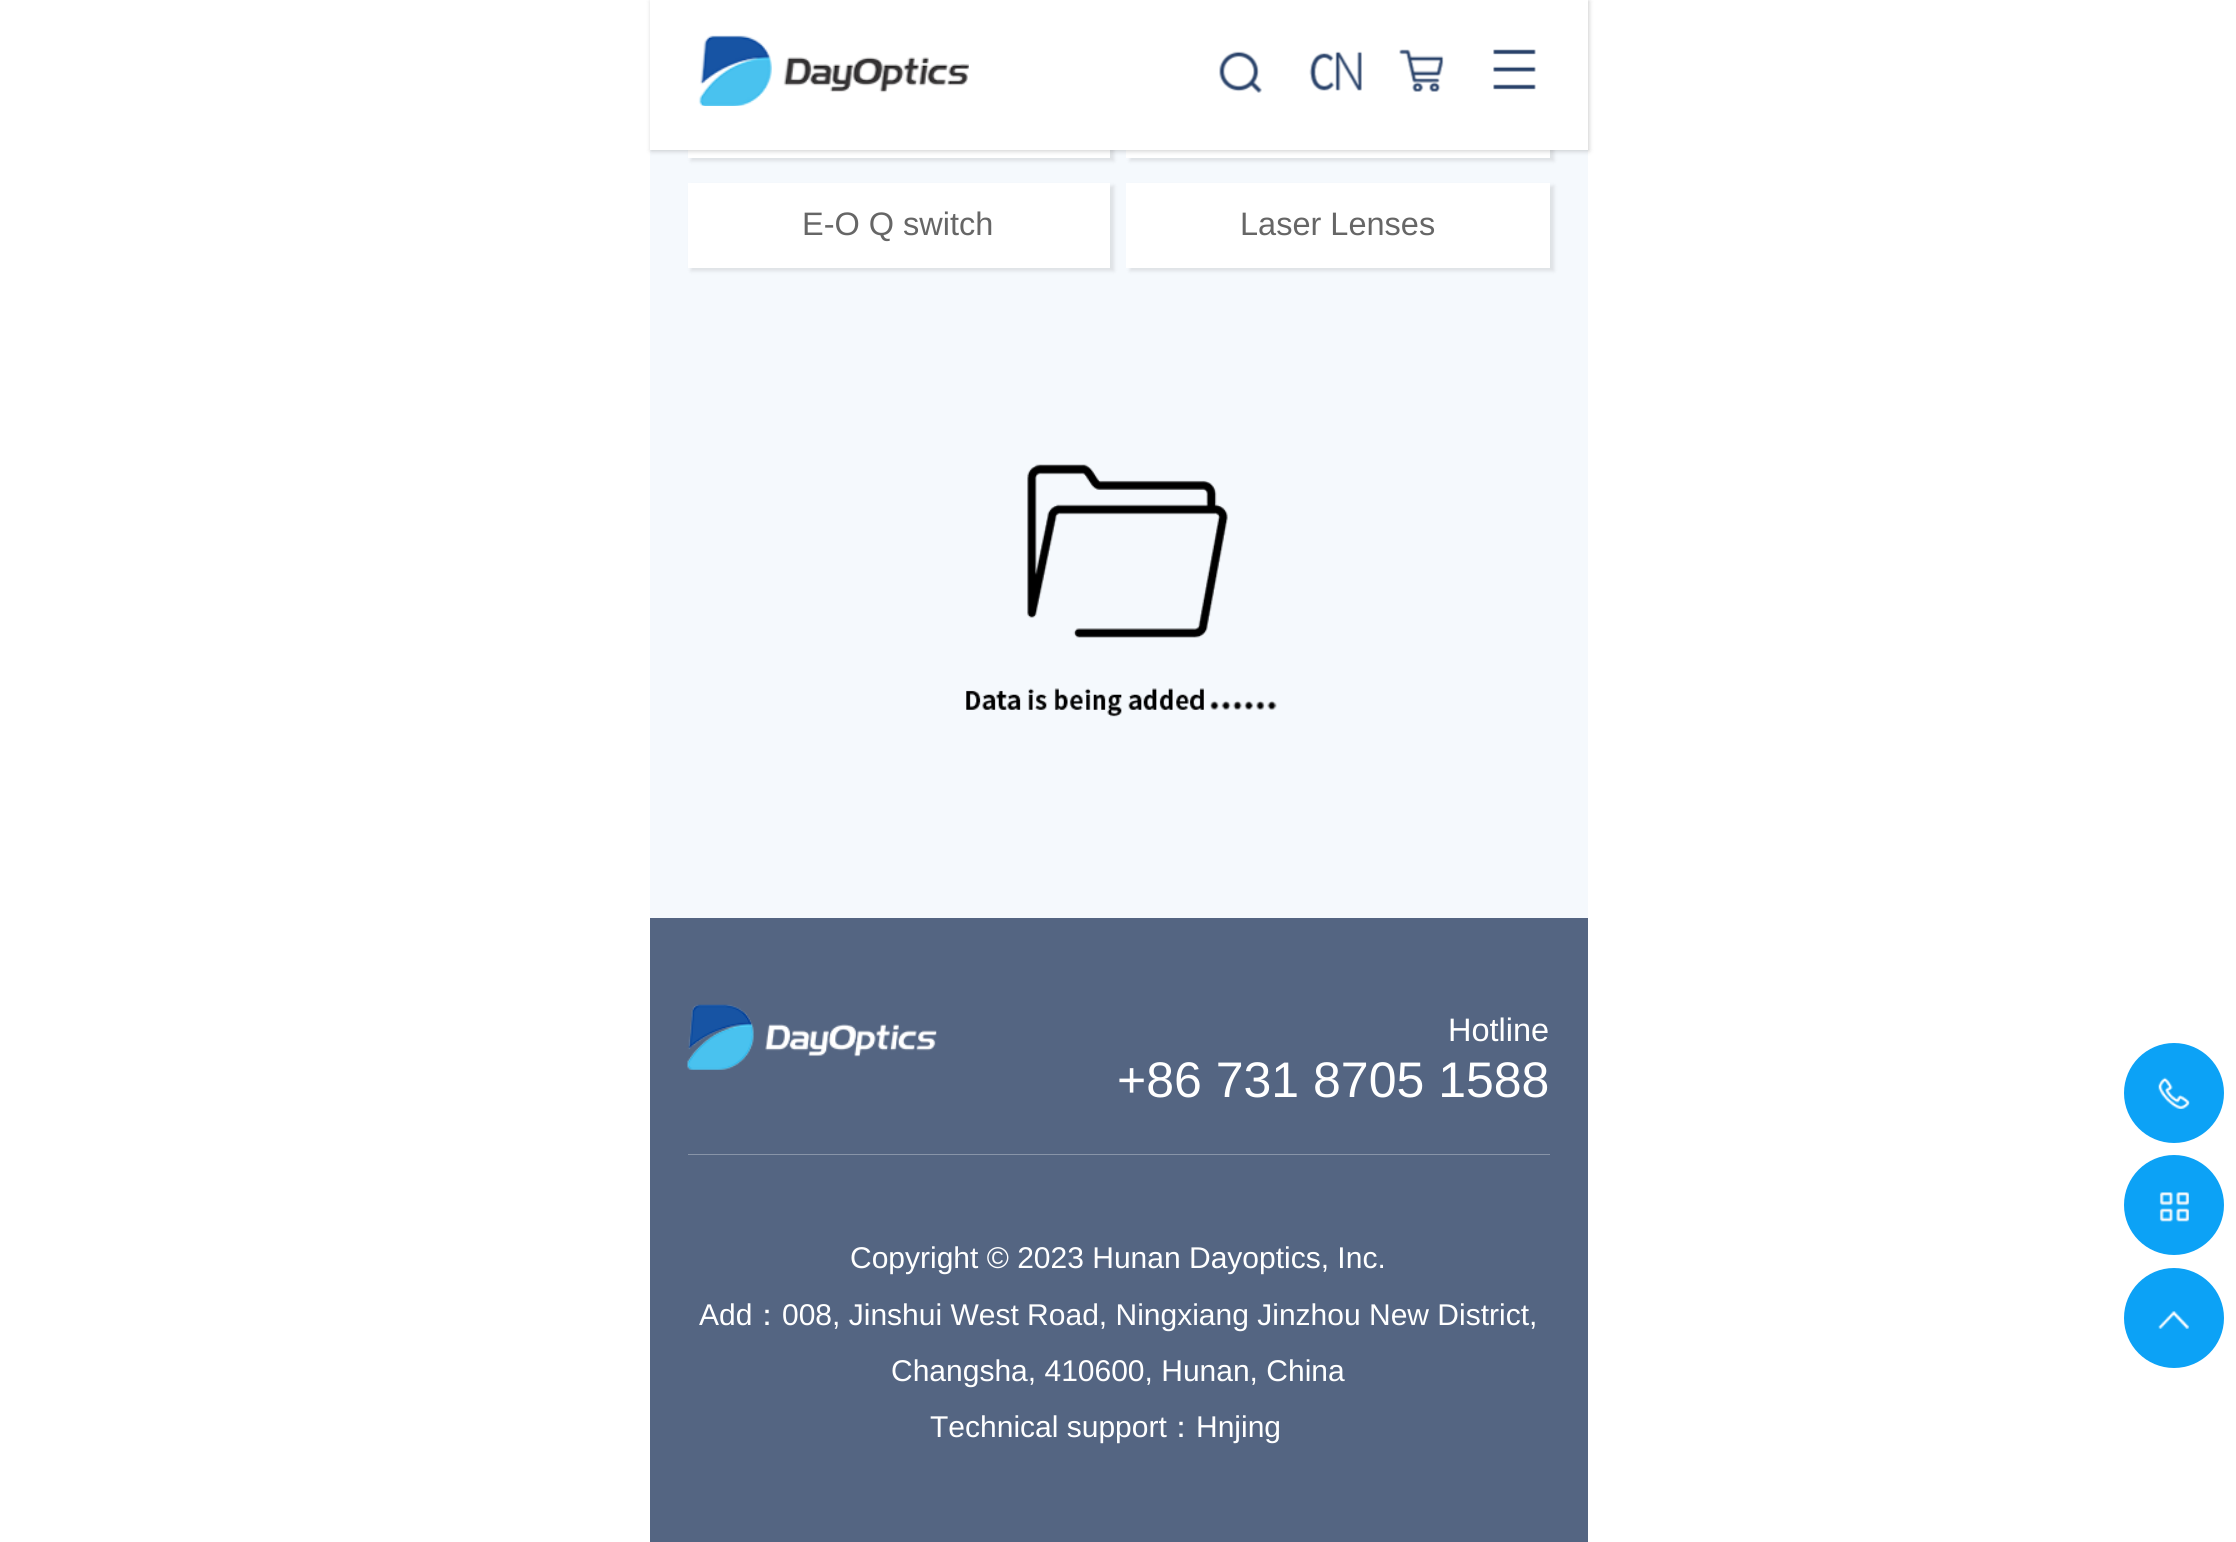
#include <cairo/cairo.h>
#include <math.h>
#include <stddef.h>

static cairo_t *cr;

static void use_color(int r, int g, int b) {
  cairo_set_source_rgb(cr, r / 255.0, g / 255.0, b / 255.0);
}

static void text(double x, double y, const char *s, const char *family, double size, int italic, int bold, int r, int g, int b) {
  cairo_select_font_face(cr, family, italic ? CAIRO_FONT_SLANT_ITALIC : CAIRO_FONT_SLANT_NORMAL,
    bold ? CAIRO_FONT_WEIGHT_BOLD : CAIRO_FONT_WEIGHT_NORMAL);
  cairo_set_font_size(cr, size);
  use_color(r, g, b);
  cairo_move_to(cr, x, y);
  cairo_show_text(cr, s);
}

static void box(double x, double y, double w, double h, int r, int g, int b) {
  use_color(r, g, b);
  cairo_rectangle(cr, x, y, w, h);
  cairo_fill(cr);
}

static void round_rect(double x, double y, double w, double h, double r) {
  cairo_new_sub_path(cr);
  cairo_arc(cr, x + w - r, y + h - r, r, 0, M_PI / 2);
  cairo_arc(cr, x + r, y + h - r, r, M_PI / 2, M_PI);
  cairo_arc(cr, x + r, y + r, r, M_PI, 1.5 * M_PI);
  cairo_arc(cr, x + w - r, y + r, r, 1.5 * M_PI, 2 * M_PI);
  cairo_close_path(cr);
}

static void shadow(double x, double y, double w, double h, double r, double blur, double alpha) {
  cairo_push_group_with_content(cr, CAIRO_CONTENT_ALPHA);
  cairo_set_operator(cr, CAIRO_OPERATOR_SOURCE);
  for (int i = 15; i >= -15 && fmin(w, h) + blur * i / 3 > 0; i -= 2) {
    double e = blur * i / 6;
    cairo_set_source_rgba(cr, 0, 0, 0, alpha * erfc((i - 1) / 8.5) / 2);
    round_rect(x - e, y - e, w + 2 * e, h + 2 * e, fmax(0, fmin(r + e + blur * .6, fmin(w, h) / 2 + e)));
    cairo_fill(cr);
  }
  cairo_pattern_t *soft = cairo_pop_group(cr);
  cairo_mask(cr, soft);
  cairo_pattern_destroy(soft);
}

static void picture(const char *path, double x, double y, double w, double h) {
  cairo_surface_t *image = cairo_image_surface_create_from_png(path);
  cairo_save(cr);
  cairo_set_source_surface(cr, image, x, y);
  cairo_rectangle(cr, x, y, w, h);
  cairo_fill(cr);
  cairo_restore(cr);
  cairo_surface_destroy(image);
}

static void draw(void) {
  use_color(255, 255, 255);
  cairo_paint(cr);
  box(650, 150, 938, 768, 245, 249, 253);
  use_color(0, 0, 0);
  shadow(691, 76, 423, 85, 0, 2, 0.1);
  box(688, 150, 422, 8, 255, 255, 255);
  use_color(0, 0, 0);
  shadow(1130, 76, 424, 85, 0, 2, 0.1);
  box(1126, 150, 424, 8, 255, 255, 255);
  use_color(0, 0, 0);
  shadow(651, 1, 938, 150, 0, 2.5, 0.2);
  box(650, 0, 938, 150, 255, 255, 255);
  picture("img_01.png", 698, 35, 271, 71);
  picture("img_02.png", 1219, 51, 43, 42);
  picture("img_03.png", 1309, 51, 53, 40);
  picture("img_04.png", 1399, 49, 45, 43);
  picture("img_05.png", 1493, 49, 43, 41);
  use_color(0, 0, 0);
  shadow(691, 186, 423, 85, 0, 2, 0.1);
  box(688, 183, 422, 85, 255, 255, 255);
  use_color(0, 0, 0);
  shadow(1130, 186, 424, 85, 0, 2, 0.1);
  box(1126, 183, 424, 85, 255, 255, 255);
  picture("img_06.png", 966, 464, 311, 253);
  box(650, 918, 938, 624, 84, 101, 130);
  picture("img_07.png", 687, 1004, 250, 66);
  box(688, 1154, 862, 1, 136, 148, 168);
  use_color(12, 162, 246);
  cairo_arc(cr, 2174, 1093, 50, 0, 2 * M_PI);
  cairo_fill(cr);
  picture("img_08.png", 2158, 1077, 32, 32);
  cairo_arc(cr, 2174, 1205, 50, 0, 2 * M_PI);
  cairo_fill(cr);
  picture("img_09.png", 2159, 1192, 30, 30);
  cairo_arc(cr, 2174, 1318, 50, 0, 2 * M_PI);
  cairo_fill(cr);
  picture("img_10.png", 2158, 1311, 31, 18);
  text(802, 235, "E-O Q switch", "Liberation Sans", 32.5, 0, 0, 102, 102, 102);
  text(1240, 235, "Laser Lenses", "Liberation Sans", 32.5, 0, 0, 102, 102, 102);
  text(1448, 1041, "Hotline", "Liberation Sans", 32.5, 0, 0, 255, 255, 255);
  text(1117, 1097, "+86 731 8705 1588", "Liberation Sans", 50, 0, 0, 255, 255, 255);
  text(850, 1268, "Copyright © 2023 Hunan Dayoptics, Inc.", "Liberation Sans", 30, 0, 0, 255, 255, 255);
  text(699, 1325, "Add", "Liberation Sans", 30, 0, 0, 255, 255, 255);
  text(752, 1325, "：", "WenQuanYi Zen Hei Medium", 30, 0, 0, 255, 255, 255);
  text(782, 1325, "008, Jinshui West Road, Ningxiang Jinzhou New District,", "Liberation Sans", 30, 0, 0, 255, 255, 255);
  text(891, 1381, "Changsha, 410600, Hunan, China", "Liberation Sans", 30, 0, 0, 255, 255, 255);
  text(930, 1437, "Technical support", "Liberation Sans", 30, 0, 0, 255, 255, 255);
  text(1166, 1437, "：", "WenQuanYi Zen Hei Medium", 30, 0, 0, 255, 255, 255);
  text(1196, 1437, "Hnjing", "Liberation Sans", 30, 0, 0, 255, 255, 255);
}

int main(void) {
  cairo_surface_t *surface = cairo_image_surface_create(CAIRO_FORMAT_RGB24, 2236, 1542);
  cr = cairo_create(surface);
  cairo_font_options_t *options = cairo_font_options_create();
  cairo_font_options_set_hint_metrics(options, CAIRO_HINT_METRICS_OFF);
  cairo_font_options_set_hint_style(options, CAIRO_HINT_STYLE_NONE);
  cairo_set_font_options(cr, options);
  cairo_set_miter_limit(cr, 4);
  draw();
  cairo_surface_write_to_png(surface, "out.png");
  cairo_font_options_destroy(options);
  cairo_destroy(cr);
  cairo_surface_destroy(surface);
  return 0;
}
